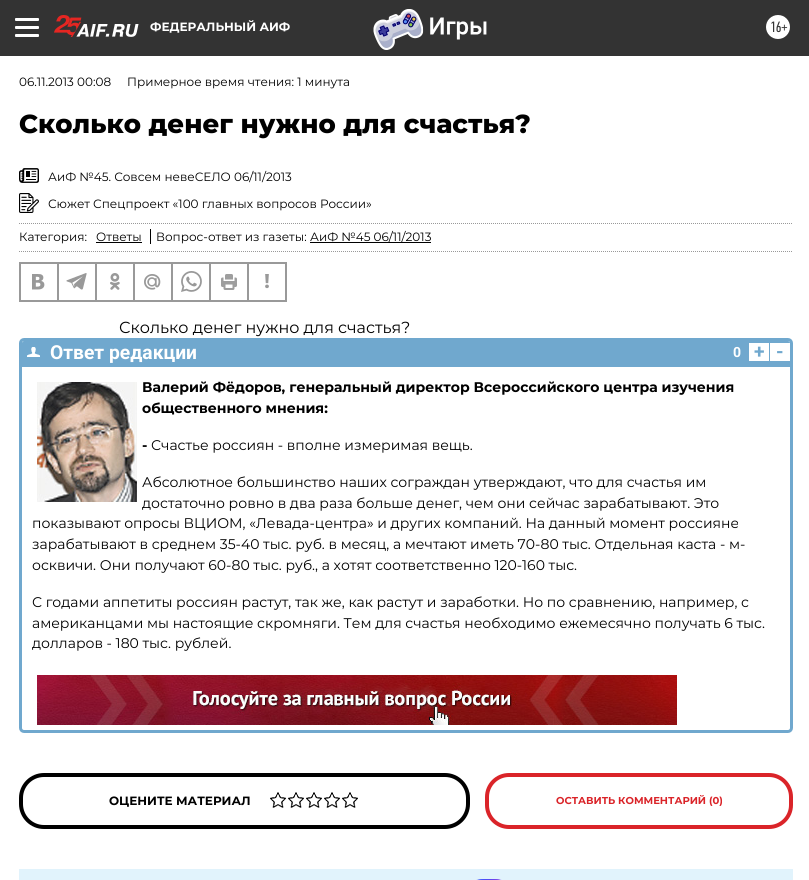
#include <cairo/cairo.h>
#include <math.h>
#include <stddef.h>

static cairo_t *cr;

static void use_color(int r, int g, int b) {
  cairo_set_source_rgb(cr, r / 255.0, g / 255.0, b / 255.0);
}

static void text(double x, double y, const char *s, const char *family, double size, int italic, int bold, int r, int g, int b) {
  cairo_select_font_face(cr, family, italic ? CAIRO_FONT_SLANT_ITALIC : CAIRO_FONT_SLANT_NORMAL,
    bold ? CAIRO_FONT_WEIGHT_BOLD : CAIRO_FONT_WEIGHT_NORMAL);
  cairo_set_font_size(cr, size);
  use_color(r, g, b);
  cairo_move_to(cr, x, y);
  cairo_show_text(cr, s);
}

static void box(double x, double y, double w, double h, int r, int g, int b) {
  use_color(r, g, b);
  cairo_rectangle(cr, x, y, w, h);
  cairo_fill(cr);
}

static void round_rect(double x, double y, double w, double h, double r) {
  cairo_new_sub_path(cr);
  cairo_arc(cr, x + w - r, y + h - r, r, 0, M_PI / 2);
  cairo_arc(cr, x + r, y + h - r, r, M_PI / 2, M_PI);
  cairo_arc(cr, x + r, y + r, r, M_PI, 1.5 * M_PI);
  cairo_arc(cr, x + w - r, y + r, r, 1.5 * M_PI, 2 * M_PI);
  cairo_close_path(cr);
}

static void picture(const char *path, double x, double y, double w, double h) {
  cairo_surface_t *image = cairo_image_surface_create_from_png(path);
  cairo_save(cr);
  cairo_set_source_surface(cr, image, x, y);
  cairo_rectangle(cr, x, y, w, h);
  cairo_fill(cr);
  cairo_restore(cr);
  cairo_surface_destroy(image);
}

static void draw(void) {
  use_color(255, 255, 255);
  cairo_paint(cr);
  box(0, 0, 809, 56, 51, 51, 51);
  use_color(255, 255, 255);
  round_rect(15, 18, 24, 3, 1);
  cairo_fill(cr);
  round_rect(15, 26, 24, 3, 1);
  cairo_fill(cr);
  round_rect(15, 34, 24, 3, 1);
  cairo_fill(cr);
  picture("img_01.png", 54, 15, 85, 22);
  picture("img_02.png", 373, 9, 114, 41);
  cairo_arc(cr, 778, 27, 12, 0, 2 * M_PI);
  cairo_fill(cr);
  picture("img_03.png", 19, 168, 20, 15);
  picture("img_04.png", 19, 193, 20, 20);
  cairo_new_path(cr);
  cairo_move_to(cr, 19, 223.5);
  cairo_line_to(cr, 793, 223.5);
  use_color(153, 153, 153);
  cairo_set_line_width(cr, 1);
  cairo_set_dash(cr, (double[]){1, 1}, 2, 0);
  cairo_stroke(cr);
  cairo_new_path(cr);
  cairo_move_to(cr, 19, 251.5);
  cairo_line_to(cr, 793, 251.5);
  cairo_stroke(cr);
  box(96, 242, 46, 1, 0, 0, 0);
  box(150, 229, 1, 15, 0, 0, 0);
  box(310, 242, 121, 1, 0, 0, 0);
  cairo_rectangle(cr, 19.5, 262.5, 267, 39);
  use_color(153, 153, 153);
  cairo_set_dash(cr, NULL, 0, 0);
  cairo_stroke(cr);
  cairo_rectangle(cr, 20.5, 263.5, 37, 37);
  cairo_stroke(cr);
  picture("img_05.png", 32, 274, 13, 16);
  cairo_rectangle(cr, 58.5, 263.5, 37, 37);
  cairo_stroke(cr);
  picture("img_06.png", 66, 273, 21, 17);
  cairo_rectangle(cr, 96.5, 263.5, 37, 37);
  cairo_stroke(cr);
  picture("img_07.png", 110, 273, 10, 17);
  cairo_rectangle(cr, 134.5, 263.5, 37, 37);
  cairo_stroke(cr);
  picture("img_08.png", 144, 274, 17, 16);
  cairo_rectangle(cr, 172.5, 263.5, 37, 37);
  cairo_stroke(cr);
  picture("img_09.png", 181, 271, 21, 21);
  cairo_rectangle(cr, 210.5, 263.5, 37, 37);
  cairo_stroke(cr);
  picture("img_10.png", 221, 274, 16, 16);
  cairo_rectangle(cr, 248.5, 263.5, 37, 37);
  cairo_stroke(cr);
  picture("img_11.png", 265, 274, 4, 15);
  round_rect(20.5, 339.5, 771, 392, 3.5);
  use_color(112, 168, 206);
  cairo_set_line_width(cr, 3);
  cairo_stroke(cr);
  cairo_new_path(cr);
  cairo_move_to(cr, 24, 341);
  cairo_line_to(cr, 788, 341);
  cairo_curve_to(cr, 789, 341, 790, 342, 790, 343);
  cairo_line_to(cr, 790, 367);
  cairo_line_to(cr, 22, 367);
  cairo_line_to(cr, 22, 343);
  cairo_curve_to(cr, 22, 342, 23, 341, 24, 341);
  cairo_close_path(cr);
  cairo_fill(cr);
  picture("img_12.png", 27, 347, 13, 10);
  box(749, 343, 20, 18, 255, 255, 255);
  box(770, 343, 20, 18, 255, 255, 255);
  picture("img_13.png", 37, 382, 100, 120);
  picture("img_14.png", 37, 675, 640, 50);
  round_rect(21, 775, 447, 52, 23);
  use_color(0, 0, 0);
  cairo_set_line_width(cr, 4);
  cairo_stroke(cr);
  picture("img_15.png", 270, 792, 16, 16);
  picture("img_15.png", 288, 792, 16, 16);
  picture("img_15.png", 306, 792, 16, 16);
  picture("img_15.png", 324, 792, 16, 16);
  picture("img_15.png", 342, 792, 16, 16);
  round_rect(487, 775, 304, 52, 22);
  use_color(218, 36, 41);
  cairo_stroke(cr);
  box(19, 869, 774, 11, 225, 243, 252);
  picture("img_16.png", 476, 879, 26, 1);
  text(150, 31, "ФЕДЕРАЛЬНЫЙ АИФ", "Montserrat", 12, 0, 1, 255, 255, 255);
  text(770, 32, "16+", "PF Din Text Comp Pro", 15, 0, 0, 51, 51, 51);
  text(19, 86, "06.11.2013 00:08", "Montserrat", 12, 0, 0, 0, 0, 0);
  text(127, 86, "Примерное время чтения: 1 минута", "Montserrat", 12, 0, 0, 0, 0, 0);
  text(19, 133, "Сколько денег нужно для счастья?", "Montserrat ExtraBold", 26, 0, 0, 0, 0, 0);
  text(48, 181, "АиФ №45. Совсем невеСЕЛО 06/11/2013", "Montserrat", 12, 0, 0, 0, 0, 0);
  text(48, 208, "Сюжет Спецпроект «100 главных вопросов России»", "Montserrat", 12, 0, 0, 0, 0, 0);
  text(19, 241, "Категория:", "Montserrat", 12, 0, 0, 0, 0, 0);
  text(96, 241, "Ответы", "Montserrat", 12, 0, 0, 0, 0, 0);
  text(156, 241, "Вопрос-ответ из газеты:", "Montserrat", 12, 0, 0, 0, 0, 0);
  text(310, 241, "АиФ №45 06/11/2013", "Montserrat", 12, 0, 0, 0, 0, 0);
  text(119, 333, "Сколько денег нужно для счастья?", "Montserrat", 16, 0, 0, 0, 0, 0);
  text(50, 359, "Ответ редакции", "Roboto", 19.25, 0, 1, 255, 255, 255);
  text(733, 357, "0", "Roboto", 14, 0, 1, 255, 255, 255);
  text(754, 358, "+", "Roboto", 19.25, 0, 1, 112, 168, 206);
  text(776, 358, "-", "Roboto", 19.25, 0, 1, 112, 168, 206);
  text(142, 392, "Валерий Фёдоров, генеральный директор Всероссийского центра изучения", "Montserrat", 14, 0, 1, 0, 0, 0);
  text(142, 413, "общественного мнения:", "Montserrat", 14, 0, 1, 0, 0, 0);
  text(142, 450, "-", "Montserrat", 14, 0, 1, 0, 0, 0);
  text(151, 450, "Счастье россиян - вполне измеримая вещь.", "Montserrat", 14, 0, 0, 0, 0, 0);
  text(142, 487, "Абсолютное большинство наших сограждан утверждают, что для счастья им", "Montserrat", 14, 0, 0, 0, 0, 0);
  text(142, 508, "достаточно ровно в два раза больше денег, чем они сейчас зарабатывают. Это", "Montserrat", 14, 0, 0, 0, 0, 0);
  text(32, 528, "показывают опросы ВЦИОМ, «Левада-центра» и других компаний. На данный момент россияне", "Montserrat", 14, 0, 0, 0, 0, 0);
  text(32, 549, "зарабатывают в среднем 35-40 тыс. руб. в месяц, а мечтают иметь 70-80 тыс. Отдельная каста - м-", "Montserrat", 14, 0, 0, 0, 0, 0);
  text(32, 570, "осквичи. Они получают 60-80 тыс. руб., а хотят соответственно 120-160 тыс.", "Montserrat", 14, 0, 0, 0, 0, 0);
  text(32, 607, "С годами аппетиты россиян растут, так же, как растут и заработки. Но по сравнению, например, с", "Montserrat", 14, 0, 0, 0, 0, 0);
  text(32, 628, "американцами мы настоящие скромняги. Тем для счастья необходимо ежемесячно получать 6 тыс.", "Montserrat", 14, 0, 0, 0, 0, 0);
  text(32, 648, "долларов - 180 тыс. рублей.", "Montserrat", 14, 0, 0, 0, 0, 0);
  text(109, 805, "ОЦЕНИТЕ МАТЕРИАЛ", "Montserrat", 12, 0, 1, 0, 0, 0);
  text(556, 804, "ОСТАВИТЬ КОММЕНТАРИЙ (0)", "Montserrat", 10, 0, 1, 218, 36, 41);
}

int main(void) {
  cairo_surface_t *surface = cairo_image_surface_create(CAIRO_FORMAT_RGB24, 809, 880);
  cr = cairo_create(surface);
  cairo_font_options_t *options = cairo_font_options_create();
  cairo_font_options_set_hint_metrics(options, CAIRO_HINT_METRICS_OFF);
  cairo_font_options_set_hint_style(options, CAIRO_HINT_STYLE_NONE);
  cairo_set_font_options(cr, options);
  cairo_set_miter_limit(cr, 4);
  draw();
  cairo_surface_write_to_png(surface, "out.png");
  cairo_font_options_destroy(options);
  cairo_destroy(cr);
  cairo_surface_destroy(surface);
  return 0;
}
